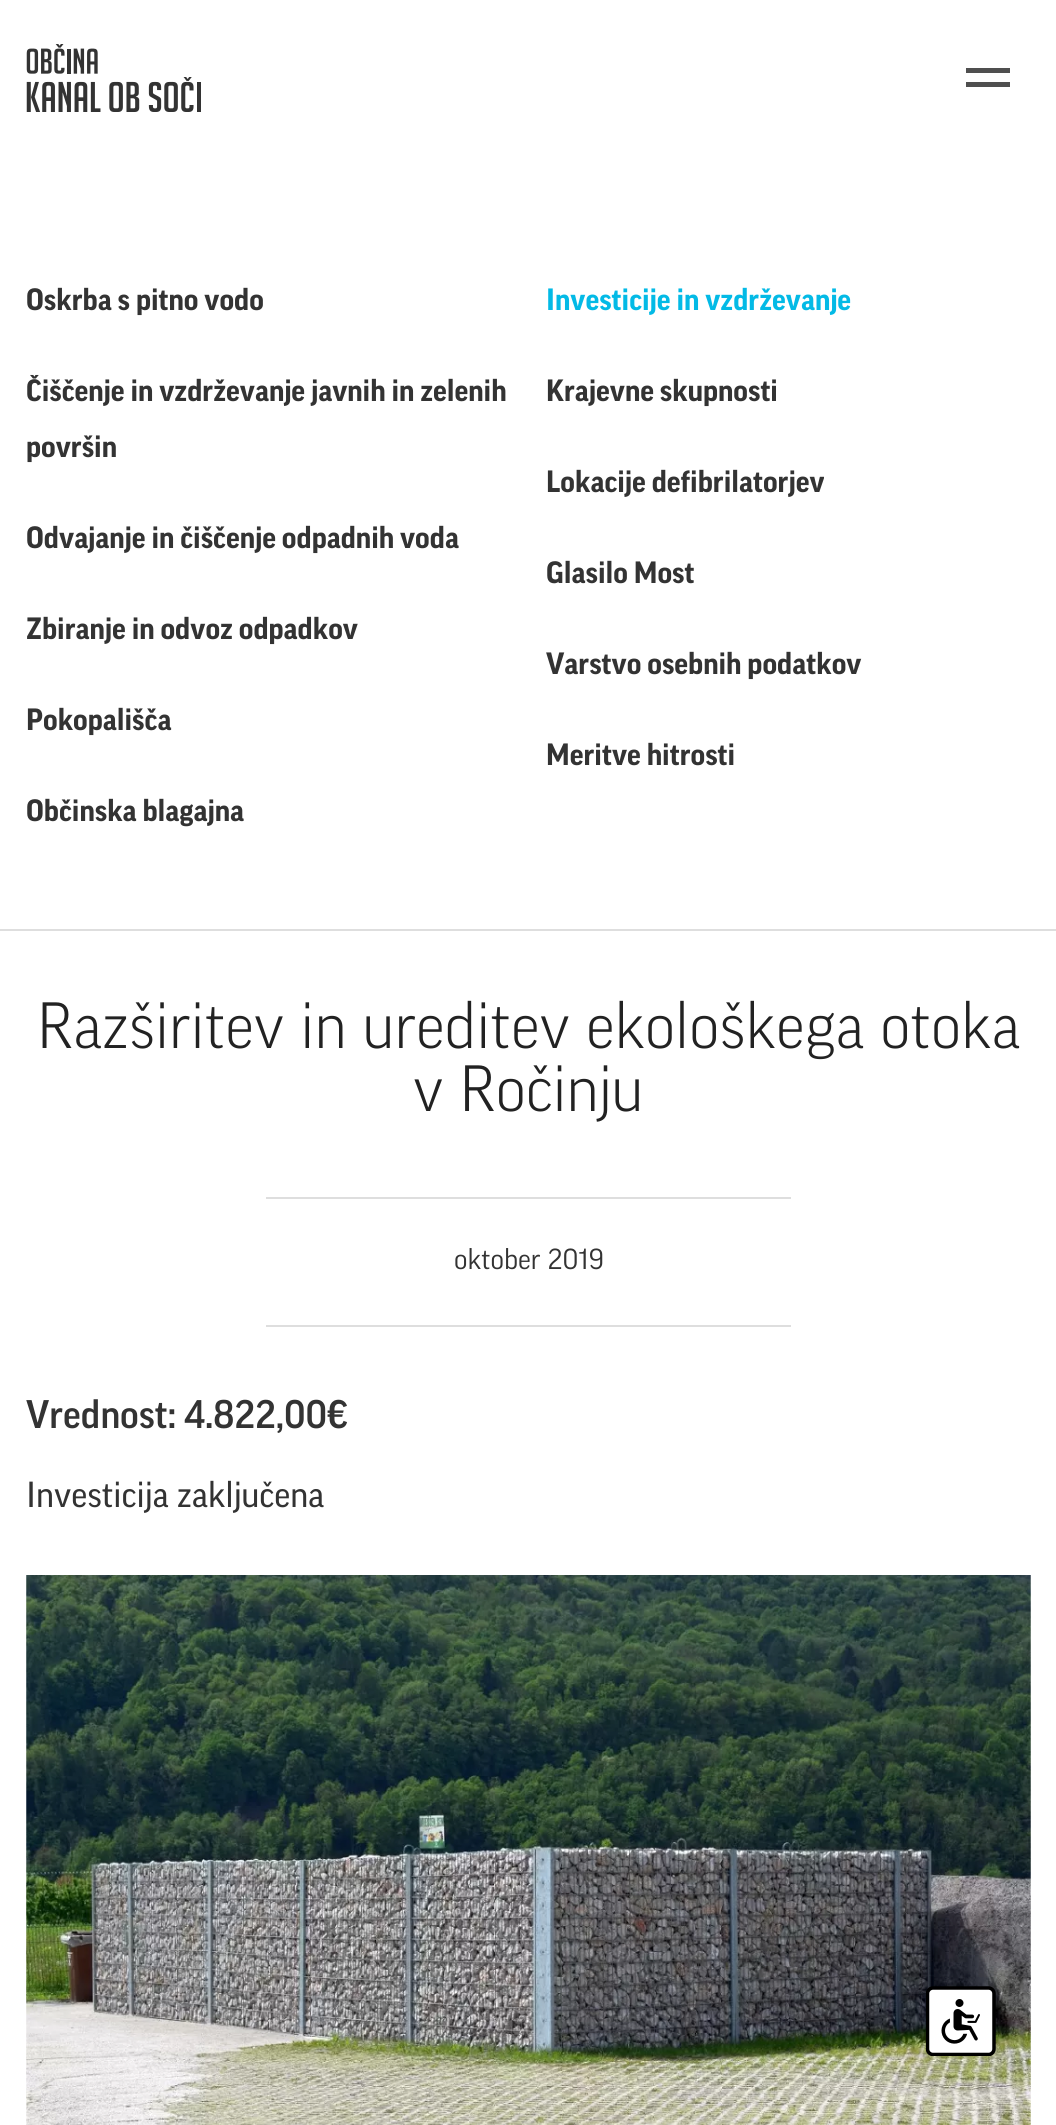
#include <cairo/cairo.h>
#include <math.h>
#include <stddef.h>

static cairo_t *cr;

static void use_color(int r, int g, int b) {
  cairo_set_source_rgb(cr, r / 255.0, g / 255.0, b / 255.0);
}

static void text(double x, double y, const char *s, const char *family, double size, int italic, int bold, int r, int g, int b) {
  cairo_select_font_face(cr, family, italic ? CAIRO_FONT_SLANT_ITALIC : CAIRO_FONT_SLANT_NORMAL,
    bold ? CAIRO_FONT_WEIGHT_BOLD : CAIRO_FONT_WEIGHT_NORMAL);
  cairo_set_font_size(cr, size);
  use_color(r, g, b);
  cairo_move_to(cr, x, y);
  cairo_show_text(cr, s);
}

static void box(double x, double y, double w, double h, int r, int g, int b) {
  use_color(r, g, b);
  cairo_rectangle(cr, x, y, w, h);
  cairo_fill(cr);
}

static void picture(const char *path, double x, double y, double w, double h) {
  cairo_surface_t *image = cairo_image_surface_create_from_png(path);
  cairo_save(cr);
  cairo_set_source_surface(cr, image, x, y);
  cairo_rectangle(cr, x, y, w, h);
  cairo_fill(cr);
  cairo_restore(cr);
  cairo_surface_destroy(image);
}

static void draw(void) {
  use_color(255, 255, 255);
  cairo_paint(cr);
  picture("img_01.png", 26, 44, 175, 68);
  box(966, 68, 44, 5, 79, 79, 79);
  box(966, 82, 44, 5, 79, 79, 79);
  box(0, 929, 1056, 2, 222, 222, 222);
  box(266, 1197, 525, 2, 222, 222, 222);
  box(266, 1325, 525, 2, 222, 222, 222);
  picture("img_02.png", 26, 1575, 1005, 550);
  picture("img_03.png", 926, 1986, 70, 70);
  text(26, 310, "Oskrba s pitno vodo", "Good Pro", 29.75, 0, 1, 51, 51, 51);
  text(546, 310, "Investicije in vzdrževanje", "Good Pro", 29.75, 0, 1, 3, 186, 230);
  text(26, 401, "Čiščenje in vzdrževanje javnih in zelenih", "Good Pro", 29.75, 0, 1, 51, 51, 51);
  text(26, 457, "površin", "Good Pro", 29.75, 0, 1, 51, 51, 51);
  text(546, 401, "Krajevne skupnosti", "Good Pro", 29.75, 0, 1, 51, 51, 51);
  text(546, 492, "Lokacije defibrilatorjev", "Good Pro", 29.75, 0, 1, 51, 51, 51);
  text(26, 548, "Odvajanje in čiščenje odpadnih voda", "Good Pro", 29.75, 0, 1, 51, 51, 51);
  text(546, 583, "Glasilo Most", "Good Pro", 29.75, 0, 1, 51, 51, 51);
  text(26, 639, "Zbiranje in odvoz odpadkov", "Good Pro", 29.75, 0, 1, 51, 51, 51);
  text(546, 674, "Varstvo osebnih podatkov", "Good Pro", 29.75, 0, 1, 51, 51, 51);
  text(26, 730, "Pokopališča", "Good Pro", 29.75, 0, 1, 51, 51, 51);
  text(546, 765, "Meritve hitrosti", "Good Pro", 29.75, 0, 1, 51, 51, 51);
  text(26, 821, "Občinska blagajna", "Good Pro", 29.75, 0, 1, 51, 51, 51);
  text(37, 1048, "Razširitev in ureditev ekološkega otoka", "Good Pro Light", 63, 0, 0, 34, 34, 34);
  text(413, 1111, "v Ročinju", "Good Pro Light", 63, 0, 0, 34, 34, 34);
  text(454, 1269, "oktober 2019", "Good Pro", 28, 0, 0, 51, 51, 51);
  text(26, 1428, "Vrednost: 4.822,00€", "Good Pro Medium", 38.5, 0, 0, 51, 51, 51);
  text(26, 1507, "Investicija zaključena", "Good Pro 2 Medium", 35, 0, 0, 51, 51, 51);
}

int main(void) {
  cairo_surface_t *surface = cairo_image_surface_create(CAIRO_FORMAT_RGB24, 1056, 2125);
  cr = cairo_create(surface);
  cairo_font_options_t *options = cairo_font_options_create();
  cairo_font_options_set_hint_metrics(options, CAIRO_HINT_METRICS_OFF);
  cairo_font_options_set_hint_style(options, CAIRO_HINT_STYLE_NONE);
  cairo_set_font_options(cr, options);
  cairo_set_miter_limit(cr, 4);
  draw();
  cairo_surface_write_to_png(surface, "out.png");
  cairo_font_options_destroy(options);
  cairo_destroy(cr);
  cairo_surface_destroy(surface);
  return 0;
}
